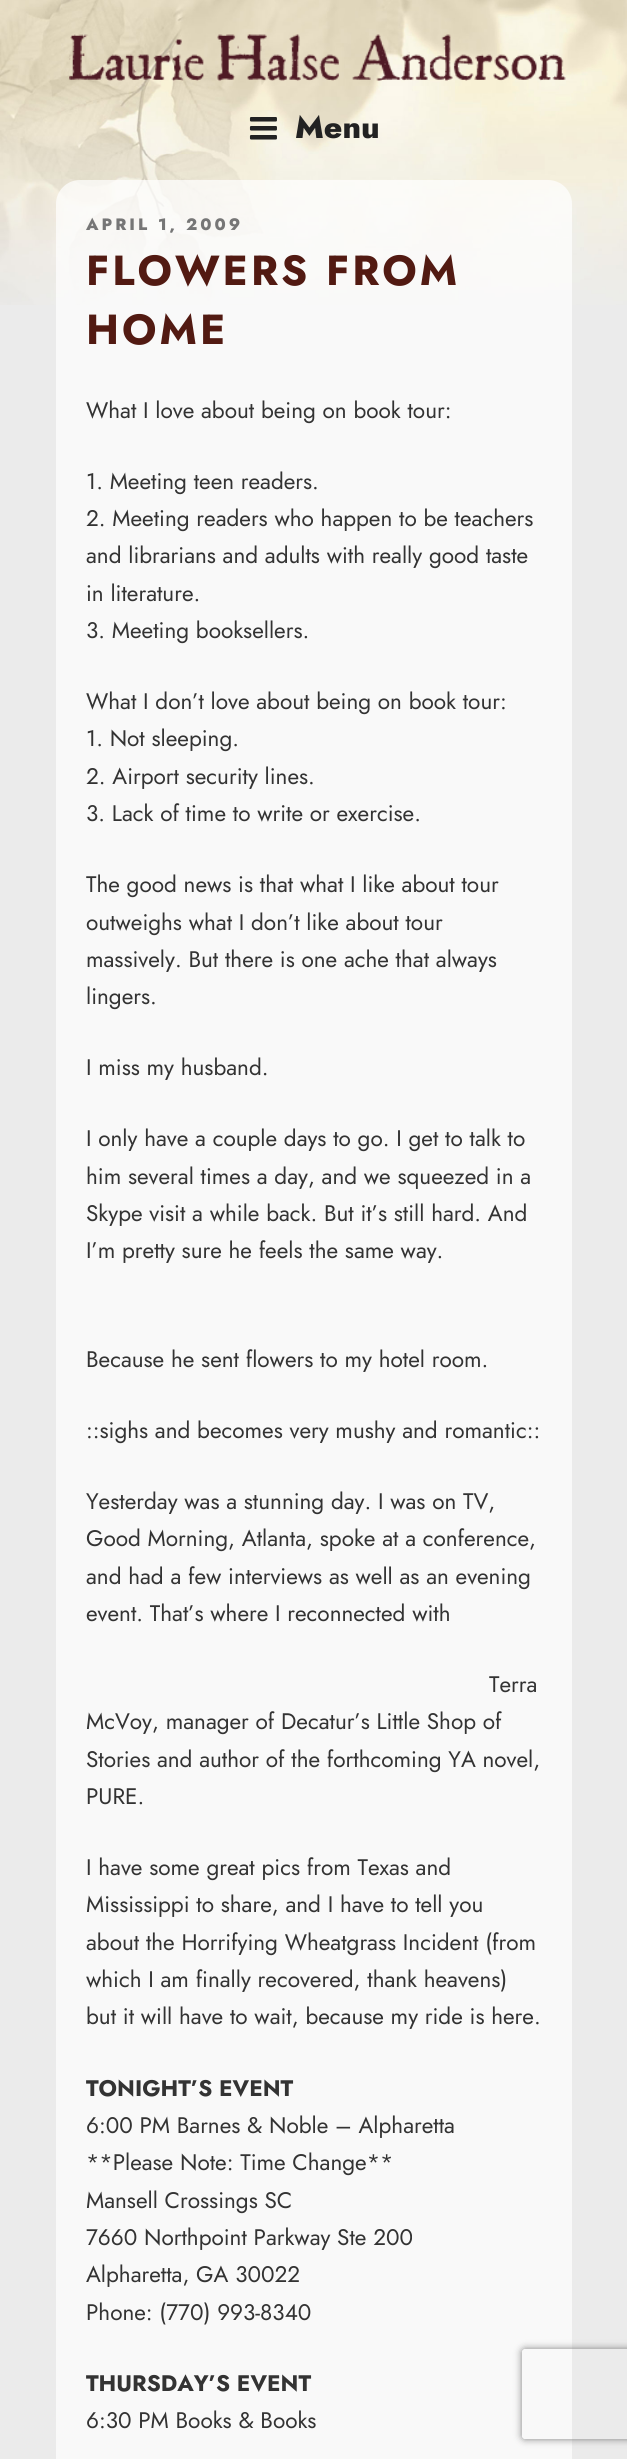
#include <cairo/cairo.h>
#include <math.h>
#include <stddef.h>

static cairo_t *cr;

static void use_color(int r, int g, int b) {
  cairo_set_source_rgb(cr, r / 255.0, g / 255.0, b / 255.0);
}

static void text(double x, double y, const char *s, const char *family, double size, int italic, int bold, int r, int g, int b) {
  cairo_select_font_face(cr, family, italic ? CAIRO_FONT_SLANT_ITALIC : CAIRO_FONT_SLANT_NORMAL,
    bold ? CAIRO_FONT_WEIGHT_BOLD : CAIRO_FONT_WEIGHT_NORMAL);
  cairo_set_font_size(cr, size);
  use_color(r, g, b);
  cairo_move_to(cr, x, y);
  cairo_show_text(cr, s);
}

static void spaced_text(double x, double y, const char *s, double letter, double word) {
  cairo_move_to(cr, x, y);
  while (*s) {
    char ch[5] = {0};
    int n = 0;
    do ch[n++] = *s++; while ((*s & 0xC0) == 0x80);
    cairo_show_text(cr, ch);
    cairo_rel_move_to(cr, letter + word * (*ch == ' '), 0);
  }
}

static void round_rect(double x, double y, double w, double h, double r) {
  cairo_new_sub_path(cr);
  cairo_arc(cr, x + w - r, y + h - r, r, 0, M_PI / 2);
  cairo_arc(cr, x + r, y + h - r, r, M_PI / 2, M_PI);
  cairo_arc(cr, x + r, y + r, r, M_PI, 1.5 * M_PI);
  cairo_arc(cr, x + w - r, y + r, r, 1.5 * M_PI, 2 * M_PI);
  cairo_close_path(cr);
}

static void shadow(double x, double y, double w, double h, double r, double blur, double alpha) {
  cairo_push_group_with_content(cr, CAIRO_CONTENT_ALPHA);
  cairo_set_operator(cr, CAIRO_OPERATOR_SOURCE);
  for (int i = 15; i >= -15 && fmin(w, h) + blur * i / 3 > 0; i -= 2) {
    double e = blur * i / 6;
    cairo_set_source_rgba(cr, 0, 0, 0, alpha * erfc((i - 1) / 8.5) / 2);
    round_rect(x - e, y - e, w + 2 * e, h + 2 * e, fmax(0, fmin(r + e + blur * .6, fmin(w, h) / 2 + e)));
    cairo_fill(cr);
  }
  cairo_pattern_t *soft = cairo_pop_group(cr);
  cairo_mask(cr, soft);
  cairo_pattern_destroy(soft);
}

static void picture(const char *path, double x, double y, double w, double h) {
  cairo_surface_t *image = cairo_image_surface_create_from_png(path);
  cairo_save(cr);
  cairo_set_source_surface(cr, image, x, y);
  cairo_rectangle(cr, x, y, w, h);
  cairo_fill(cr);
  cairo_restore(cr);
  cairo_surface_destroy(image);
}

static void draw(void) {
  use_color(235, 235, 235);
  cairo_paint(cr);
  picture("img_03.png", 0, 0, 627, 305);
  picture("img_01.png", 69, 34, 497, 47);
  picture("img_02.png", 249, 117, 28, 23);
  cairo_set_source_rgba(cr, 1, 1, 1, 0.7);
  round_rect(56, 180, 516, 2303, 24);
  cairo_fill(cr);
  cairo_save(cr);
  cairo_set_fill_rule(cr, CAIRO_FILL_RULE_EVEN_ODD);
  cairo_new_path(cr);
  cairo_move_to(cr, 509, 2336);
  cairo_line_to(cr, 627, 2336);
  cairo_line_to(cr, 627, 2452);
  cairo_line_to(cr, 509, 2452);
  cairo_close_path(cr);
  cairo_move_to(cr, 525, 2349);
  cairo_line_to(cr, 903, 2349);
  cairo_curve_to(cr, 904.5, 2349, 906, 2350.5, 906, 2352);
  cairo_line_to(cr, 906, 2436);
  cairo_curve_to(cr, 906, 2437.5, 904.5, 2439, 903, 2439);
  cairo_line_to(cr, 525, 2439);
  cairo_curve_to(cr, 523.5, 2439, 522, 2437.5, 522, 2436);
  cairo_line_to(cr, 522, 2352);
  cairo_curve_to(cr, 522, 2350.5, 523.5, 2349, 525, 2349);
  cairo_close_path(cr);
  cairo_clip(cr);
  use_color(128, 128, 128);
  shadow(522, 2349, 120, 90, 3, 4, 1);
  cairo_restore(cr);
  text(295, 138, "Menu", "Jost ExtraBold", 31.5, 0, 0, 34, 34, 34);
  cairo_set_font_size(cr, 16.5);
  use_color(118, 118, 118);
  spaced_text(86, 230, "APRIL 1, 2009", 3, 0);
  cairo_select_font_face(cr, "Jost", CAIRO_FONT_SLANT_NORMAL, CAIRO_FONT_WEIGHT_BOLD);
  cairo_set_font_size(cr, 42);
  use_color(82, 26, 18);
  spaced_text(86, 285, "FLOWERS FROM", 3, 0);
  spaced_text(86, 344, "HOME", 3, 0);
  text(86, 418, "What I love about being on book tour:", "Jost", 22.5, 0, 0, 51, 51, 51);
  text(86, 489, "1. Meeting teen readers.", "Jost", 22.5, 0, 0, 51, 51, 51);
  text(86, 526, "2. Meeting readers who happen to be teachers", "Jost", 22.5, 0, 0, 51, 51, 51);
  text(86, 563, "and librarians and adults with really good taste", "Jost", 22.5, 0, 0, 51, 51, 51);
  text(86, 601, "in literature.", "Jost", 22.5, 0, 0, 51, 51, 51);
  text(86, 638, "3. Meeting booksellers.", "Jost", 22.5, 0, 0, 51, 51, 51);
  text(86, 709, "What I don’t love about being on book tour:", "Jost", 22.5, 0, 0, 51, 51, 51);
  text(86, 746, "1. Not sleeping.", "Jost", 22.5, 0, 0, 51, 51, 51);
  text(86, 784, "2. Airport security lines.", "Jost", 22.5, 0, 0, 51, 51, 51);
  text(86, 821, "3. Lack of time to write or exercise.", "Jost", 22.5, 0, 0, 51, 51, 51);
  text(86, 892, "The good news is that what I like about tour", "Jost", 22.5, 0, 0, 51, 51, 51);
  text(86, 930, "outweighs what I don’t like about tour", "Jost", 22.5, 0, 0, 51, 51, 51);
  text(86, 967, "massively. But there is one ache that always", "Jost", 22.5, 0, 0, 51, 51, 51);
  text(86, 1004, "lingers.", "Jost", 22.5, 0, 0, 51, 51, 51);
  text(86, 1075, "I miss my husband.", "Jost", 22.5, 0, 0, 51, 51, 51);
  text(86, 1146, "I only have a couple days to go. I get to talk to", "Jost", 22.5, 0, 0, 51, 51, 51);
  text(86, 1184, "him several times a day, and we squeezed in a", "Jost", 22.5, 0, 0, 51, 51, 51);
  text(86, 1221, "Skype visit a while back. But it’s still hard. And", "Jost", 22.5, 0, 0, 51, 51, 51);
  text(86, 1258, "I’m pretty sure he feels the same way.", "Jost", 22.5, 0, 0, 51, 51, 51);
  text(86, 1367, "Because he sent flowers to my hotel room.", "Jost", 22.5, 0, 0, 51, 51, 51);
  text(86, 1438, "::sighs and becomes very mushy and romantic::", "Jost", 22.5, 0, 0, 51, 51, 51);
  text(86, 1509, "Yesterday was a stunning day. I was on TV,", "Jost", 22.5, 0, 0, 51, 51, 51);
  text(86, 1546, "Good Morning, Atlanta, spoke at a conference,", "Jost", 22.5, 0, 0, 51, 51, 51);
  text(86, 1584, "and had a few interviews as well as an evening", "Jost", 22.5, 0, 0, 51, 51, 51);
  text(86, 1621, "event. That’s where I reconnected with", "Jost", 22.5, 0, 0, 51, 51, 51);
  text(489, 1692, "Terra", "Jost", 22.5, 0, 0, 51, 51, 51);
  text(86, 1729, "McVoy, manager of Decatur’s Little Shop of", "Jost", 22.5, 0, 0, 51, 51, 51);
  text(86, 1767, "Stories and author of the forthcoming YA novel,", "Jost", 22.5, 0, 0, 51, 51, 51);
  text(86, 1804, "PURE.", "Jost", 22.5, 0, 0, 51, 51, 51);
  text(86, 1875, "I have some great pics from Texas and", "Jost", 22.5, 0, 0, 51, 51, 51);
  text(86, 1912, "Mississippi to share, and I have to tell you", "Jost", 22.5, 0, 0, 51, 51, 51);
  text(86, 1950, "about the Horrifying Wheatgrass Incident (from", "Jost", 22.5, 0, 0, 51, 51, 51);
  text(86, 1987, "which I am finally recovered, thank heavens)", "Jost", 22.5, 0, 0, 51, 51, 51);
  text(86, 2024, "but it will have to wait, because my ride is here.", "Jost", 22.5, 0, 0, 51, 51, 51);
  text(86, 2096, "TONIGHT’S EVENT", "Jost", 22.5, 0, 1, 51, 51, 51);
  text(86, 2133, "6:00 PM Barnes & Noble – Alpharetta", "Jost", 22.5, 0, 0, 51, 51, 51);
  text(86, 2170, "**Please Note: Time Change**", "Jost", 22.5, 0, 0, 51, 51, 51);
  text(86, 2208, "Mansell Crossings SC", "Jost", 22.5, 0, 0, 51, 51, 51);
  text(86, 2245, "7660 Northpoint Parkway Ste 200", "Jost", 22.5, 0, 0, 51, 51, 51);
  text(86, 2282, "Alpharetta, GA 30022", "Jost", 22.5, 0, 0, 51, 51, 51);
  text(86, 2320, "Phone: (770) 993-8340", "Jost", 22.5, 0, 0, 51, 51, 51);
  text(86, 2391, "THURSDAY’S EVENT", "Jost", 22.5, 0, 1, 51, 51, 51);
  text(86, 2428, "6:30 PM Books & Books", "Jost", 22.5, 0, 0, 51, 51, 51);
}

int main(void) {
  cairo_surface_t *surface = cairo_image_surface_create(CAIRO_FORMAT_RGB24, 627, 2459);
  cr = cairo_create(surface);
  cairo_font_options_t *options = cairo_font_options_create();
  cairo_font_options_set_hint_metrics(options, CAIRO_HINT_METRICS_OFF);
  cairo_font_options_set_hint_style(options, CAIRO_HINT_STYLE_NONE);
  cairo_set_font_options(cr, options);
  cairo_set_miter_limit(cr, 4);
  draw();
  cairo_surface_write_to_png(surface, "out.png");
  cairo_font_options_destroy(options);
  cairo_destroy(cr);
  cairo_surface_destroy(surface);
  return 0;
}
